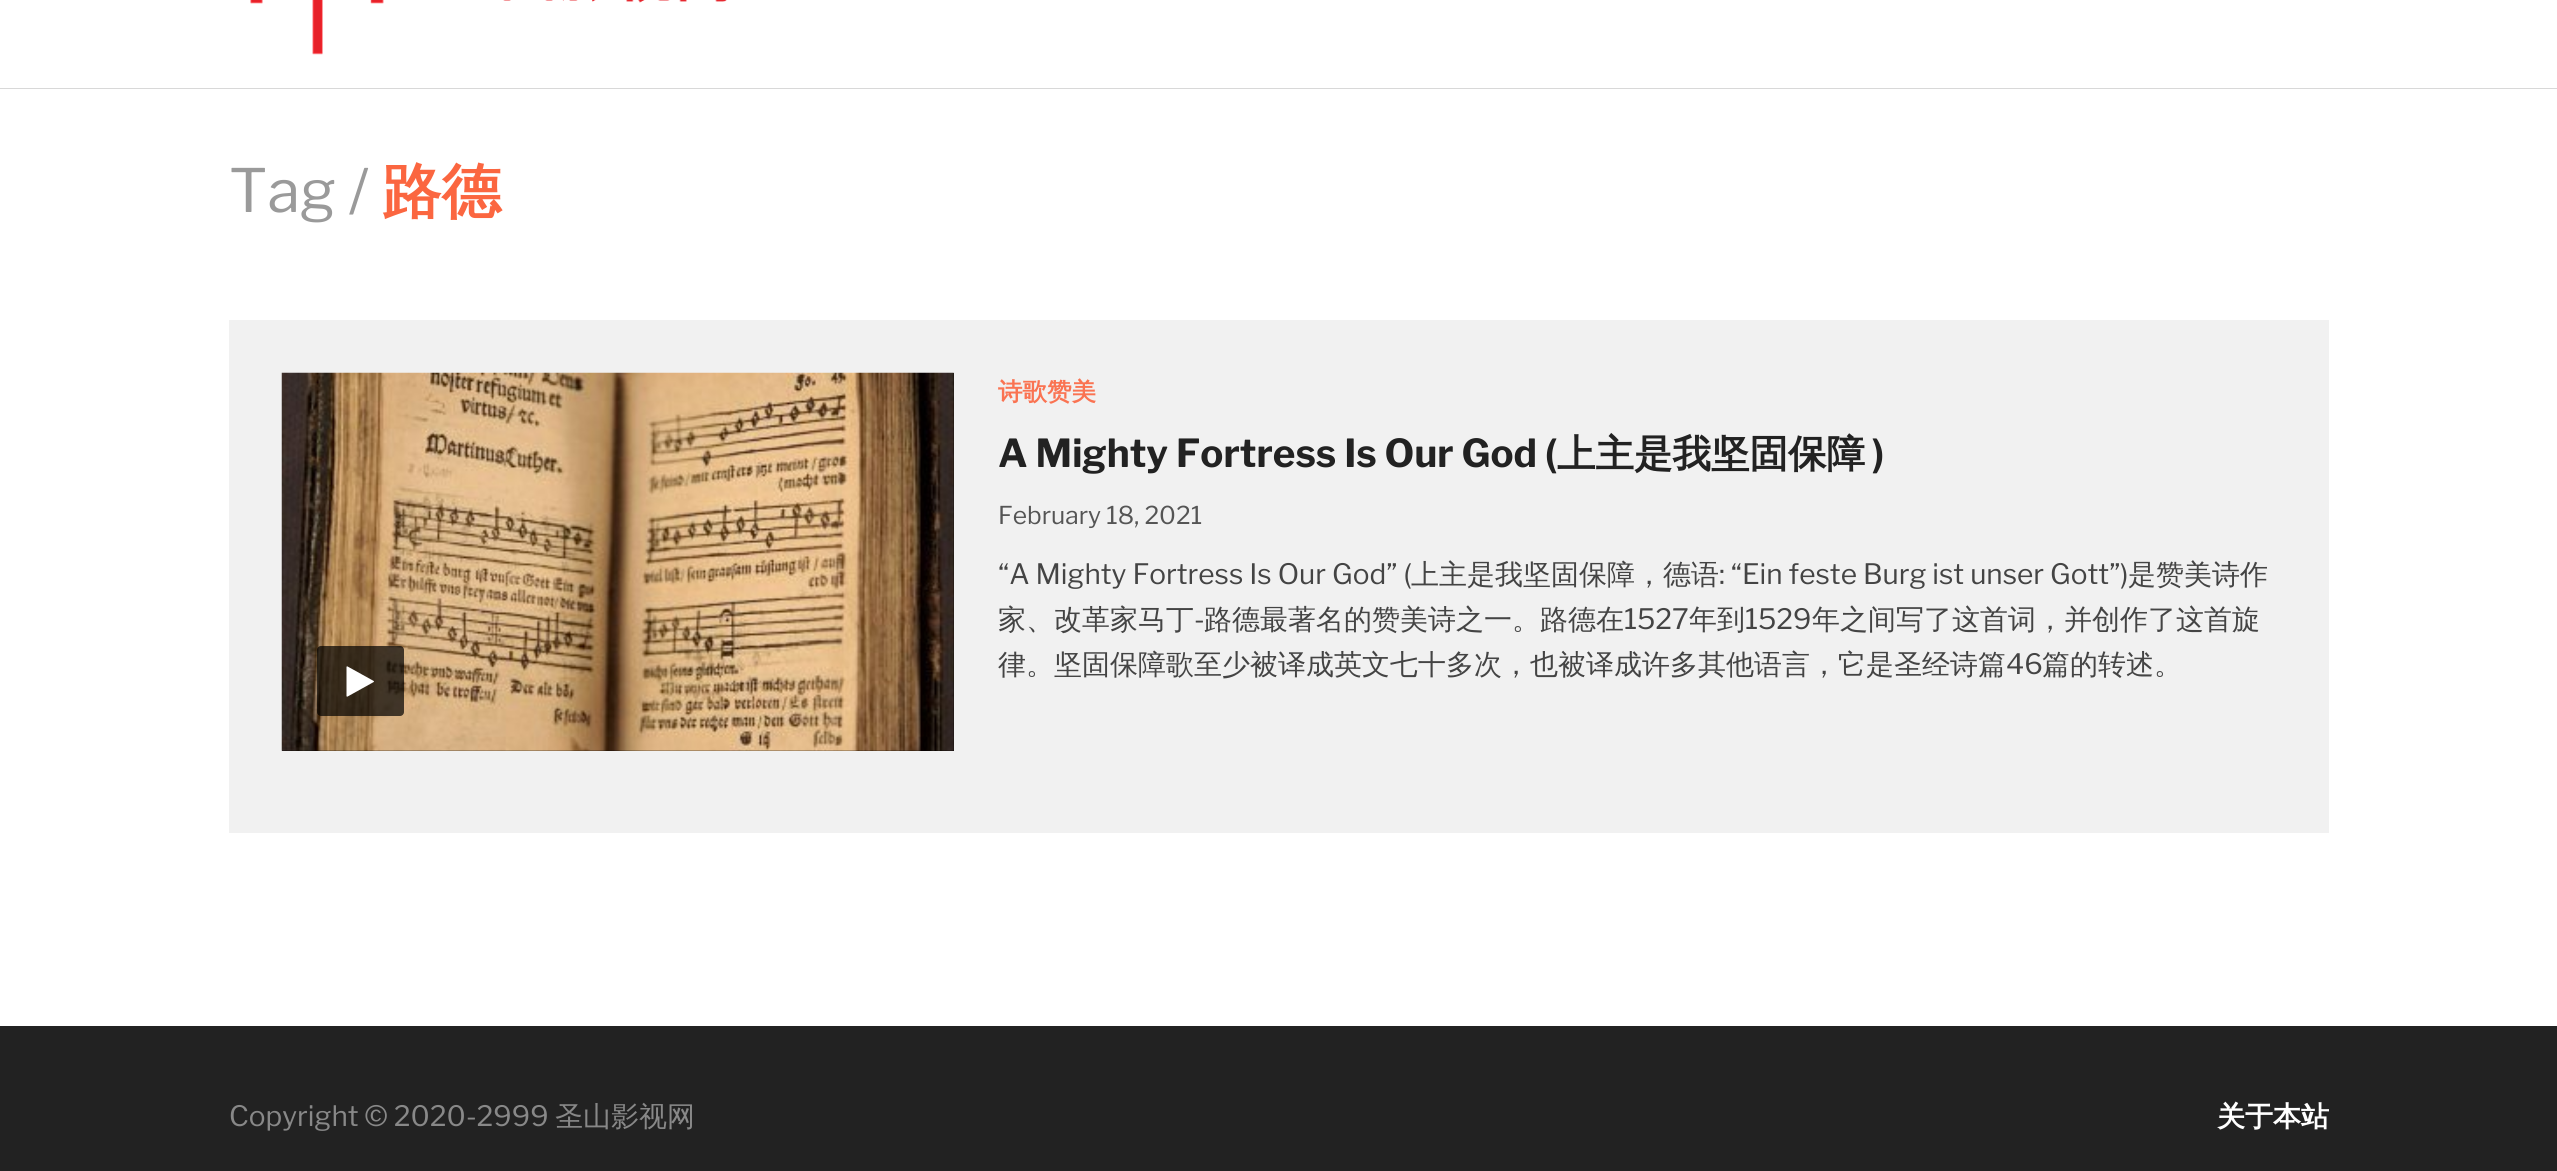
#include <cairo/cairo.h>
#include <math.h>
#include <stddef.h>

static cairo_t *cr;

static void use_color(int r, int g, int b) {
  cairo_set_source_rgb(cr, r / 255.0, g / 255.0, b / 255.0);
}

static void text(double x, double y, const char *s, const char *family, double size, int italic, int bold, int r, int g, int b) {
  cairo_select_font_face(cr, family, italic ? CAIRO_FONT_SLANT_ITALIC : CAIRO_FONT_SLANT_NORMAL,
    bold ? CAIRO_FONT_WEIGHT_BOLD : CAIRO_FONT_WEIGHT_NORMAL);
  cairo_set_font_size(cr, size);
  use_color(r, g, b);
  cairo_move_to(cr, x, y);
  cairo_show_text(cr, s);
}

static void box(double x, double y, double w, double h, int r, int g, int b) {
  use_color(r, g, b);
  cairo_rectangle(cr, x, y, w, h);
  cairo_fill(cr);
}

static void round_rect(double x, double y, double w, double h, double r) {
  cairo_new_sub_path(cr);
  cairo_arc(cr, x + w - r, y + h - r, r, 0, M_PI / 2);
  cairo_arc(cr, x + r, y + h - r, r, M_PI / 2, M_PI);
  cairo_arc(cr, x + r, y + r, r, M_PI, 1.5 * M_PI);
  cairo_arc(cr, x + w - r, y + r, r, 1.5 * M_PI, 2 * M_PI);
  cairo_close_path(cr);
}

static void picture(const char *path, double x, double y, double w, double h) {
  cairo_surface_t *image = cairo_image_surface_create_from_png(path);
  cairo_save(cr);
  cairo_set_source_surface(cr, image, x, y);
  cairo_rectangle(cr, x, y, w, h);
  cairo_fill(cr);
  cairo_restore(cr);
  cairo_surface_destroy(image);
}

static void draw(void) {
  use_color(255, 255, 255);
  cairo_paint(cr);
  use_color(216, 216, 216);
  cairo_new_path(cr);
  cairo_move_to(cr, 0, 88);
  cairo_line_to(cr, 0, 89);
  cairo_line_to(cr, 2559, 89);
  cairo_line_to(cr, 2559, -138);
  cairo_line_to(cr, 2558, -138);
  cairo_line_to(cr, 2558, 88);
  cairo_close_path(cr);
  cairo_fill(cr);
  picture("img_01.png", 250, 0, 477, 55);
  box(229, 320, 2100, 513, 241, 241, 241);
  box(282, 373, 672, 378, 0, 0, 0);
  picture("img_02.png", 281, 372, 673, 379);
  cairo_set_source_rgba(cr, 0, 0, 0, 0.7);
  round_rect(317, 646, 87, 70, 4);
  cairo_fill(cr);
  picture("img_03.png", 346, 666, 28, 31);
  box(0, 1026, 2557, 145, 34, 34, 34);
  text(229, 212, "Tag /", "Libre Franklin", 59.5, 0, 0, 154, 154, 154);
  text(382, 212, "路德", "WenQuanYi Zen Hei", 59.5, 0, 1, 251, 102, 64);
  text(998, 400, "诗歌赞美", "WenQuanYi Zen Hei", 24.5, 0, 1, 250, 115, 82);
  text(998, 467, "A Mighty Fortress Is Our God (", "Libre Franklin", 38.5, 0, 1, 34, 34, 34);
  text(1557, 467, "上主是我坚固保障", "WenQuanYi Zen Hei", 38.5, 0, 1, 34, 34, 34);
  text(1872, 467, ")", "Libre Franklin", 38.5, 0, 1, 34, 34, 34);
  text(998, 524, "February 18, 2021", "Libre Franklin", 24.5, 0, 0, 85, 85, 85);
  text(998, 584, "“A Mighty Fortress Is Our God” (", "Libre Franklin", 28, 0, 0, 68, 68, 68);
  text(1411, 584, "上主是我坚固保障，德语", "WenQuanYi Zen Hei Medium", 28, 0, 0, 68, 68, 68);
  text(1719, 584, ": “Ein feste Burg ist unser Gott”)", "Libre Franklin", 28, 0, 0, 68, 68, 68);
  text(2128, 584, "是赞美诗作", "WenQuanYi Zen Hei Medium", 28, 0, 0, 68, 68, 68);
  text(998, 629, "家、改革家马丁", "WenQuanYi Zen Hei Medium", 28, 0, 0, 68, 68, 68);
  text(1194, 629, "-", "Libre Franklin", 28, 0, 0, 68, 68, 68);
  text(1204, 629, "路德最著名的赞美诗之一。路德在", "WenQuanYi Zen Hei Medium", 28, 0, 0, 68, 68, 68);
  text(1624, 629, "1527", "Libre Franklin", 28, 0, 0, 68, 68, 68);
  text(1689, 629, "年到", "WenQuanYi Zen Hei Medium", 28, 0, 0, 68, 68, 68);
  text(1745, 629, "1529", "Libre Franklin", 28, 0, 0, 68, 68, 68);
  text(1812, 629, "年之间写了这首词，并创作了这首旋", "WenQuanYi Zen Hei Medium", 28, 0, 0, 68, 68, 68);
  text(998, 674, "律。坚固保障歌至少被译成英文七十多次，也被译成许多其他语言，它是圣经诗篇", "WenQuanYi Zen Hei Medium", 28, 0, 0, 68, 68, 68);
  text(2006, 674, "46", "Libre Franklin", 28, 0, 0, 68, 68, 68);
  text(2042, 674, "篇的转述。", "WenQuanYi Zen Hei Medium", 28, 0, 0, 68, 68, 68);
  text(229, 1126, "Copyright © 2020-2999", "Libre Franklin", 28, 0, 0, 136, 136, 136);
  text(555, 1126, "圣山影视网", "WenQuanYi Zen Hei Medium", 28, 0, 0, 136, 136, 136);
  text(2217, 1126, "关于本站", "WenQuanYi Zen Hei", 28, 0, 1, 255, 255, 255);
}

int main(void) {
  cairo_surface_t *surface = cairo_image_surface_create(CAIRO_FORMAT_RGB24, 2557, 1171);
  cr = cairo_create(surface);
  cairo_font_options_t *options = cairo_font_options_create();
  cairo_font_options_set_hint_metrics(options, CAIRO_HINT_METRICS_OFF);
  cairo_font_options_set_hint_style(options, CAIRO_HINT_STYLE_NONE);
  cairo_set_font_options(cr, options);
  cairo_set_miter_limit(cr, 4);
  draw();
  cairo_surface_write_to_png(surface, "out.png");
  cairo_font_options_destroy(options);
  cairo_destroy(cr);
  cairo_surface_destroy(surface);
  return 0;
}
